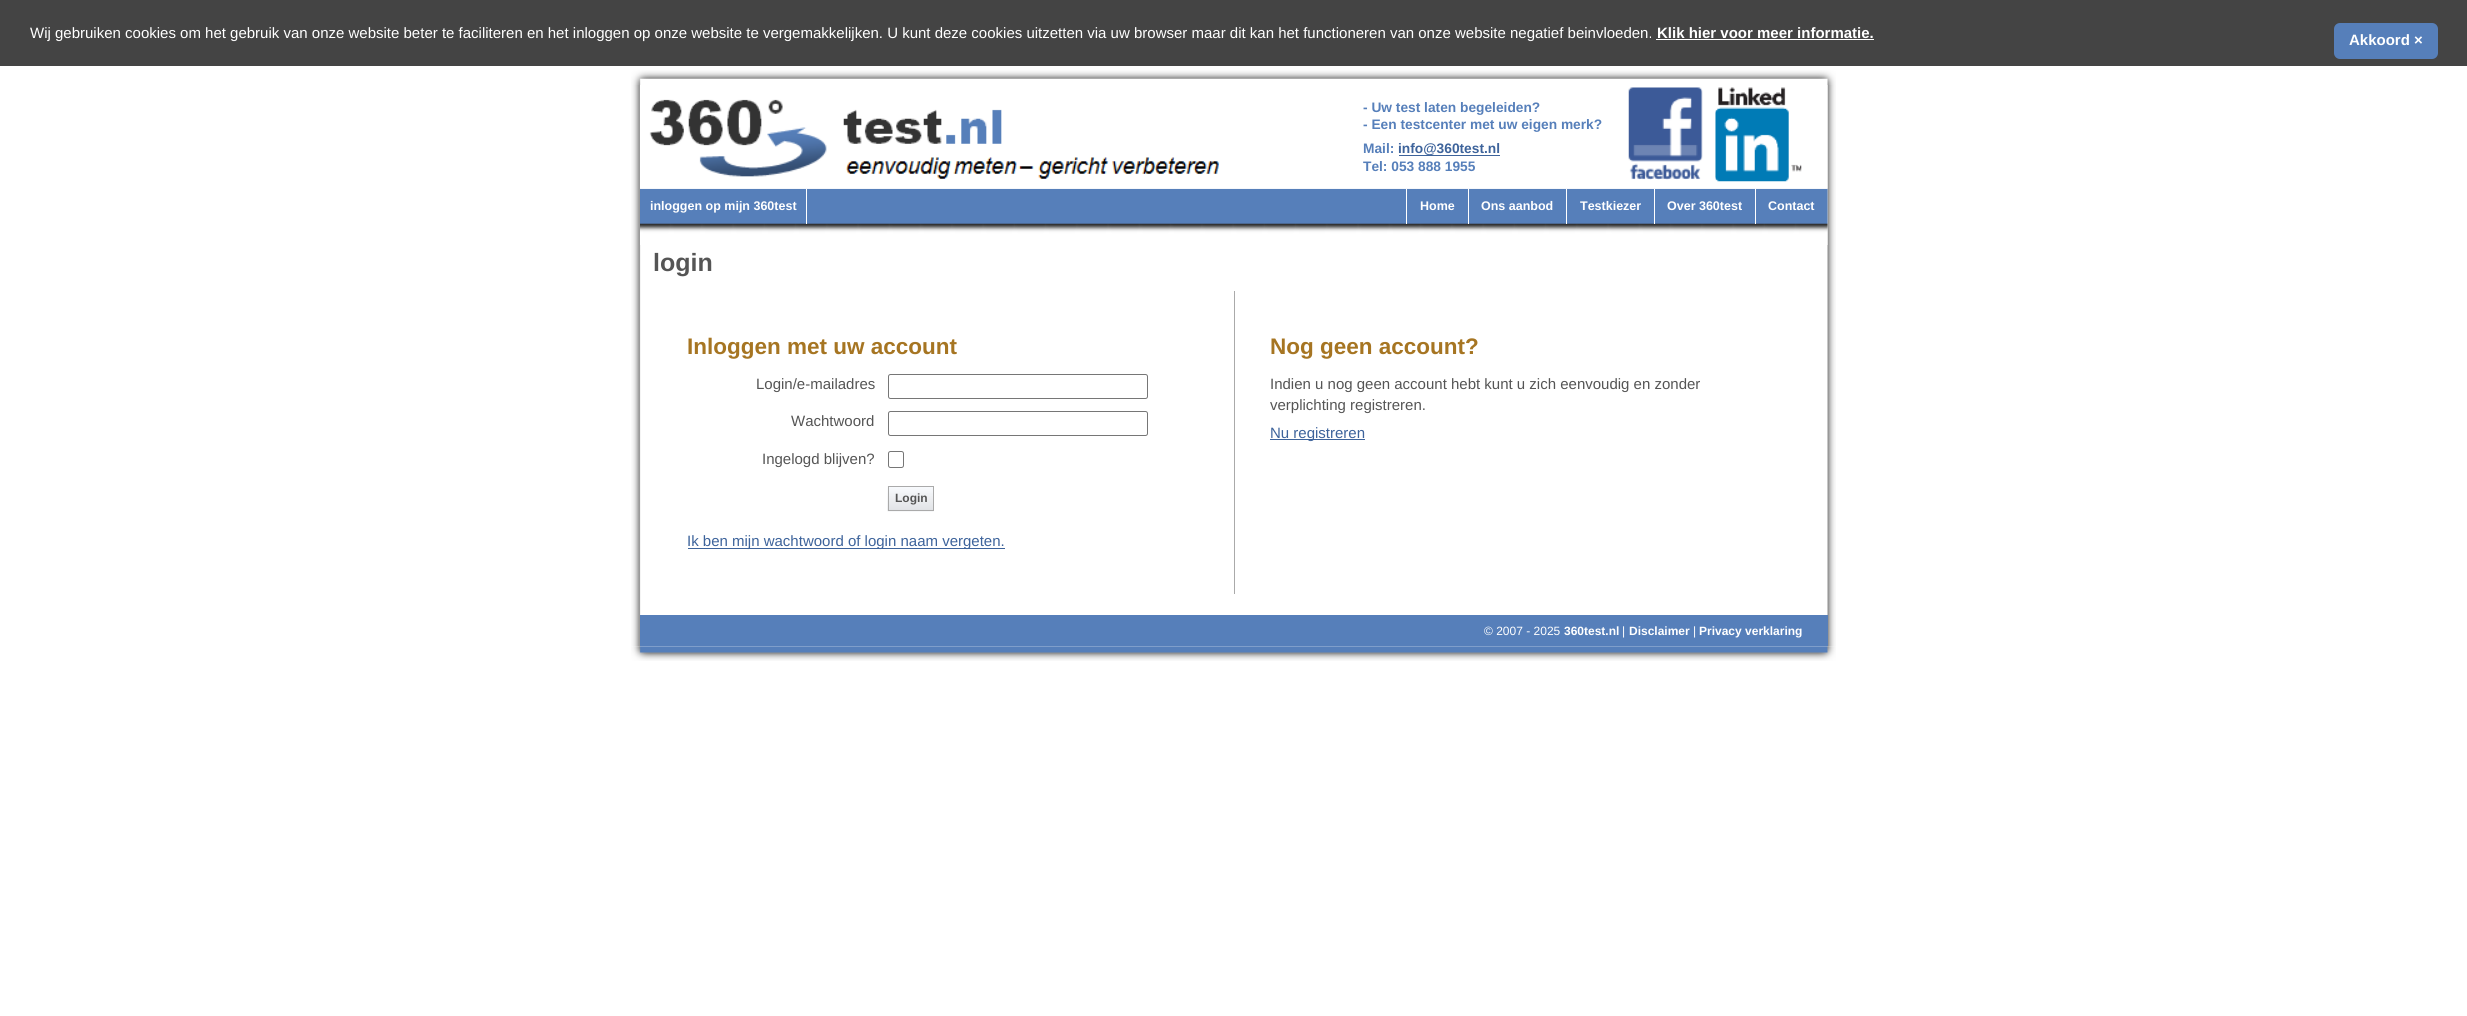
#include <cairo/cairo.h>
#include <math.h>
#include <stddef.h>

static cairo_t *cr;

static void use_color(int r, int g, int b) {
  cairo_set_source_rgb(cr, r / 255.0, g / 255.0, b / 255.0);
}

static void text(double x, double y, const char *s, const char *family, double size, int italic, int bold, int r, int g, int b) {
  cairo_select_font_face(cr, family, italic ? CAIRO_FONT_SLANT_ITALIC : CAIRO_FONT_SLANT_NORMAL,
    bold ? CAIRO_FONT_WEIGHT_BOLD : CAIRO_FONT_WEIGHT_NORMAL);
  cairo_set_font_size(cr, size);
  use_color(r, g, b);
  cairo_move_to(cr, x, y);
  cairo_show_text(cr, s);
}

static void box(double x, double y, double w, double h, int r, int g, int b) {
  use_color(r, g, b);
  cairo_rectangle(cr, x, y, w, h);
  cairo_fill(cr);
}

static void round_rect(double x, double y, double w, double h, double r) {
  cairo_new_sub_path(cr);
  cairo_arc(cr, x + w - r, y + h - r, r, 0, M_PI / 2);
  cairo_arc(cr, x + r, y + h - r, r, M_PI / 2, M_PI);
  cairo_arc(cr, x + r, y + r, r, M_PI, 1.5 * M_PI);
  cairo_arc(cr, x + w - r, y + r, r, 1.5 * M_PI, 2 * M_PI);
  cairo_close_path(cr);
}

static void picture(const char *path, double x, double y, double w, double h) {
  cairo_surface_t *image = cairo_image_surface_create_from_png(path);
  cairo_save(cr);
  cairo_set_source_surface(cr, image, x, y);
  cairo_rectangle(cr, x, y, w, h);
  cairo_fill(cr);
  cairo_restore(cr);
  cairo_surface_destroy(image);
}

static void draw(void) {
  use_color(255, 255, 255);
  cairo_paint(cr);
  box(0, 0, 2467, 66, 68, 68, 68);
  box(1656, 39, 218, 1, 255, 255, 255);
  use_color(86, 127, 186);
  round_rect(2334, 23, 104, 36, 6);
  cairo_fill(cr);
  picture("img_01.png", 631, 70, 1205, 15);
  picture("img_02.png", 631, 85, 1205, 562);
  picture("img_06.png", 640, 188, 1188, 57);
  picture("img_03.png", 640, 85, 1188, 104);
  box(1399, 155, 101, 1, 61, 99, 155);
  picture("img_04.png", 1628, 87, 75, 93);
  picture("img_05.png", 1715, 87, 87, 95);
  box(806, 189, 1, 35, 255, 255, 255);
  box(1406, 189, 1, 35, 255, 255, 255);
  box(1468, 189, 1, 35, 255, 255, 255);
  box(1566, 189, 1, 35, 255, 255, 255);
  box(1654, 189, 1, 35, 255, 255, 255);
  box(1755, 189, 1, 35, 255, 255, 255);
  box(1234, 291, 1, 303, 170, 170, 170);
  round_rect(888.5, 374.5, 259, 24, 2);
  use_color(118, 118, 118);
  cairo_set_line_width(cr, 1);
  cairo_stroke(cr);
  round_rect(888.5, 411.5, 259, 24, 2);
  cairo_stroke(cr);
  round_rect(888.5, 451.5, 15, 16, 2);
  cairo_stroke(cr);
  picture("img_07.png", 887, 486, 47, 26);
  cairo_rectangle(cr, 888.5, 486.5, 45, 24);
  use_color(170, 170, 170);
  cairo_stroke(cr);
  box(688, 548, 317, 1, 61, 99, 155);
  box(1270, 439, 95, 1, 61, 99, 155);
  box(640, 615, 1188, 31, 86, 127, 186);
  picture("img_08.png", 631, 646, 1205, 15);
  text(30, 38, "Wij gebruiken cookies om het gebruik van onze website beter te faciliteren en het inloggen op onze website te vergemakkelijken. U kunt deze cookies uitzetten via uw browser maar dit kan het functioneren van onze website negatief beinvloeden.", "Liberation Sans", 15, 0, 0, 255, 255, 255);
  text(1657, 38, "Klik hier voor meer informatie.", "Liberation Sans", 15, 0, 1, 255, 255, 255);
  text(2349, 45, "Akkoord ×", "Liberation Sans", 15, 0, 1, 255, 255, 255);
  text(1363, 112, "- Uw test laten begeleiden?", "Liberation Sans", 13.75, 0, 1, 86, 127, 186);
  text(1363, 129, "- Een testcenter met uw eigen merk?", "Liberation Sans", 13.75, 0, 1, 86, 127, 186);
  text(1363, 153, "Mail:", "Liberation Sans", 13.75, 0, 1, 86, 127, 186);
  text(1398, 153, "info@360test.nl", "Liberation Sans", 13.75, 0, 1, 61, 99, 155);
  text(1363, 171, "Tel: 053 888 1955", "Liberation Sans", 13.75, 0, 1, 86, 127, 186);
  text(650, 210, "inloggen op mijn 360test", "Liberation Sans", 12.5, 0, 1, 255, 255, 255);
  text(1420, 210, "Home", "Liberation Sans", 12.5, 0, 1, 255, 255, 255);
  text(1481, 210, "Ons aanbod", "Liberation Sans", 12.5, 0, 1, 255, 255, 255);
  text(1580, 210, "Testkiezer", "Liberation Sans", 12.5, 0, 1, 255, 255, 255);
  text(1667, 210, "Over 360test", "Liberation Sans", 12.5, 0, 1, 255, 255, 255);
  text(1768, 210, "Contact", "Liberation Sans", 12.5, 0, 1, 255, 255, 255);
  text(653, 271, "login", "Liberation Sans", 25, 0, 1, 85, 85, 85);
  text(687, 354, "Inloggen met uw account", "Liberation Sans", 22.5, 0, 1, 166, 117, 34);
  text(756, 389, "Login/e-mailadres", "Liberation Sans", 15, 0, 0, 85, 85, 85);
  text(791, 426, "Wachtwoord", "Liberation Sans", 15, 0, 0, 85, 85, 85);
  text(762, 464, "Ingelogd blijven?", "Liberation Sans", 15, 0, 0, 85, 85, 85);
  text(895, 502, "Login", "Liberation Sans", 12, 0, 1, 85, 85, 85);
  text(687, 546, "Ik ben mijn wachtwoord of login naam vergeten.", "Liberation Sans", 15, 0, 0, 61, 99, 155);
  text(1270, 354, "Nog geen account?", "Liberation Sans", 22.5, 0, 1, 166, 117, 34);
  text(1270, 389, "Indien u nog geen account hebt kunt u zich eenvoudig en zonder", "Liberation Sans", 15, 0, 0, 85, 85, 85);
  text(1270, 410, "verplichting registreren.", "Liberation Sans", 15, 0, 0, 85, 85, 85);
  text(1270, 438, "Nu registreren", "Liberation Sans", 15, 0, 0, 61, 99, 155);
  text(1484, 635, "© 2007 - 2025", "Liberation Sans", 12, 0, 0, 255, 255, 255);
  text(1564, 635, "360test.nl", "Liberation Sans", 12, 0, 1, 255, 255, 255);
  text(1622, 635, "|", "Liberation Sans", 12, 0, 0, 255, 255, 255);
  text(1629, 635, "Disclaimer", "Liberation Sans", 12, 0, 1, 255, 255, 255);
  text(1693, 635, "|", "Liberation Sans", 12, 0, 0, 255, 255, 255);
  text(1699, 635, "Privacy verklaring", "Liberation Sans", 12, 0, 1, 255, 255, 255);
}

int main(void) {
  cairo_surface_t *surface = cairo_image_surface_create(CAIRO_FORMAT_RGB24, 2467, 1016);
  cr = cairo_create(surface);
  cairo_font_options_t *options = cairo_font_options_create();
  cairo_font_options_set_hint_metrics(options, CAIRO_HINT_METRICS_OFF);
  cairo_font_options_set_hint_style(options, CAIRO_HINT_STYLE_NONE);
  cairo_set_font_options(cr, options);
  cairo_set_miter_limit(cr, 4);
  draw();
  cairo_surface_write_to_png(surface, "out.png");
  cairo_font_options_destroy(options);
  cairo_destroy(cr);
  cairo_surface_destroy(surface);
  return 0;
}
